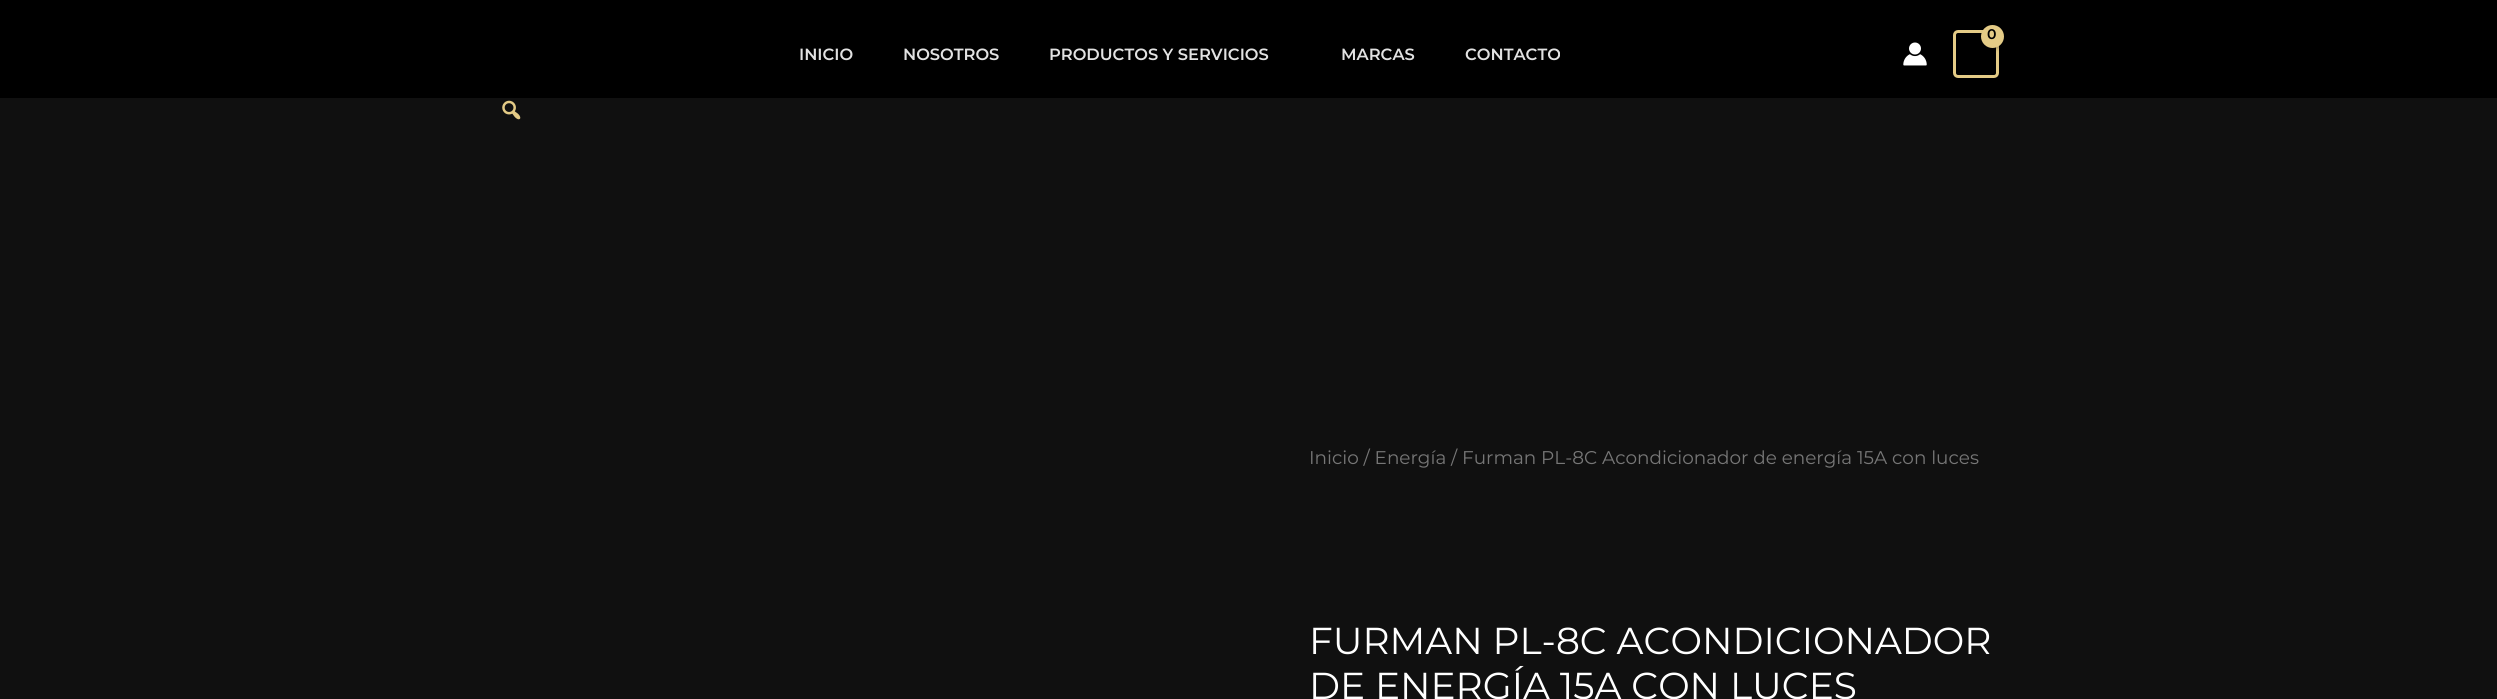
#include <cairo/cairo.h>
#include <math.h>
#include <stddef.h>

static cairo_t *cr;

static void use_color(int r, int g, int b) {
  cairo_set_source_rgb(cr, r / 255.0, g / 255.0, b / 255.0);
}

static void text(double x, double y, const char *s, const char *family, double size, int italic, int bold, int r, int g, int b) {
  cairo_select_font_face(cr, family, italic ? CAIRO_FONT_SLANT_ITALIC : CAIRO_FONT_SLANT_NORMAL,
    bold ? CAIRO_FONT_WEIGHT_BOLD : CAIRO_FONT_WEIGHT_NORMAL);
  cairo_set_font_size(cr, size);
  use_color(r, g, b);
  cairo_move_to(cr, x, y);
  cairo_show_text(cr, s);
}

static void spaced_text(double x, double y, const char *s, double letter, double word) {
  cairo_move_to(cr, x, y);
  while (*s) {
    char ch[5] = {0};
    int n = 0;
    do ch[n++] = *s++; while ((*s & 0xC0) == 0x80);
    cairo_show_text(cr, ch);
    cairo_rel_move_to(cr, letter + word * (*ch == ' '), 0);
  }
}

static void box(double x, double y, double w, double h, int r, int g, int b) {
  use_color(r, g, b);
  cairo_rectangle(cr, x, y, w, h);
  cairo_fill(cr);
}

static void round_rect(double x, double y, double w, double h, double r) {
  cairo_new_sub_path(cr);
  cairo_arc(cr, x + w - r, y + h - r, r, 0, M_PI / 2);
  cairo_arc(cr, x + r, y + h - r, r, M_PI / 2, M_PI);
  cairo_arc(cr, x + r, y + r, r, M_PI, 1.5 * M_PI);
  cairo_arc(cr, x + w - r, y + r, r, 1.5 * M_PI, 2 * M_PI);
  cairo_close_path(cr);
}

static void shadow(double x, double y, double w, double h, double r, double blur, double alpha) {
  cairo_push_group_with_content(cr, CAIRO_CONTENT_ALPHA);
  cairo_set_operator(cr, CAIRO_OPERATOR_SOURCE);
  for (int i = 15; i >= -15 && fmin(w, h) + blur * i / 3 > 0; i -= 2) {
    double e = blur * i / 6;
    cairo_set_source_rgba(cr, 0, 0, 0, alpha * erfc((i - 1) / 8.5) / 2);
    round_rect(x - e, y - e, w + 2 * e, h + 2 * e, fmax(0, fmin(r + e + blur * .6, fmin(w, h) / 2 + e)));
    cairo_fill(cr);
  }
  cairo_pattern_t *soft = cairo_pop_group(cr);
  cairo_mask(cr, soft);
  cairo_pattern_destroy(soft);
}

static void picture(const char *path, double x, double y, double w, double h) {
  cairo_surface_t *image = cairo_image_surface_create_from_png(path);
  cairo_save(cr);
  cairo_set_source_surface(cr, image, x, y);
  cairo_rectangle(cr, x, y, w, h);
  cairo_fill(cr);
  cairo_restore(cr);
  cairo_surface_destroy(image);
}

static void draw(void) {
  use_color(16, 16, 16);
  cairo_paint(cr);
  box(0, 0, 2497, 98, 0, 0, 0);
  round_rect(1954.5, 31.5, 43, 45, 3.5);
  use_color(228, 203, 134);
  cairo_set_line_width(cr, 3);
  cairo_stroke(cr);
  use_color(0, 0, 0);
  shadow(1983, 26, 22, 23, 11, 2, 0.3);
  use_color(228, 203, 134);
  cairo_arc(cr, 1992.5, 36.5, 11.5, 0, 2 * M_PI);
  cairo_fill(cr);
  picture("img_01.png", 1903, 42, 24, 24);
  picture("img_02.png", 502, 100, 19, 20);
  cairo_select_font_face(cr, "Montserrat SemiBold", CAIRO_FONT_SLANT_NORMAL, CAIRO_FONT_WEIGHT_NORMAL);
  cairo_set_font_size(cr, 14);
  use_color(0, 0, 0);
  spaced_text(1987, 39, "0", -1, 0);
  text(799, 60, "INICIO", "Montserrat SemiBold", 16.25, 0, 0, 226, 226, 226);
  text(903, 60, "NOSOTROS", "Montserrat SemiBold", 16.25, 0, 0, 226, 226, 226);
  text(1049, 60, "PRODUCTOS Y SERVICIOS", "Montserrat SemiBold", 16.25, 0, 0, 226, 226, 226);
  text(1341, 60, "MARCAS", "Montserrat SemiBold", 16.25, 0, 0, 226, 226, 226);
  text(1465, 60, "CONTACTO", "Montserrat SemiBold", 16.25, 0, 0, 226, 226, 226);
  text(1309, 464, "Inicio / Energía / Furman PL-8C Acondicionador de energía 15A con luces", "Montserrat", 18.4, 0, 0, 119, 119, 119);
  text(1309, 654, "FURMAN PL-8C ACONDICIONADOR", "Montserrat", 37.5, 0, 0, 255, 255, 255);
  text(1309, 699, "DE ENERGÍA 15A CON LUCES", "Montserrat", 37.5, 0, 0, 255, 255, 255);
}

int main(void) {
  cairo_surface_t *surface = cairo_image_surface_create(CAIRO_FORMAT_RGB24, 2497, 699);
  cr = cairo_create(surface);
  cairo_font_options_t *options = cairo_font_options_create();
  cairo_font_options_set_hint_metrics(options, CAIRO_HINT_METRICS_OFF);
  cairo_font_options_set_hint_style(options, CAIRO_HINT_STYLE_NONE);
  cairo_set_font_options(cr, options);
  cairo_set_miter_limit(cr, 4);
  draw();
  cairo_surface_write_to_png(surface, "out.png");
  cairo_font_options_destroy(options);
  cairo_destroy(cr);
  cairo_surface_destroy(surface);
  return 0;
}
